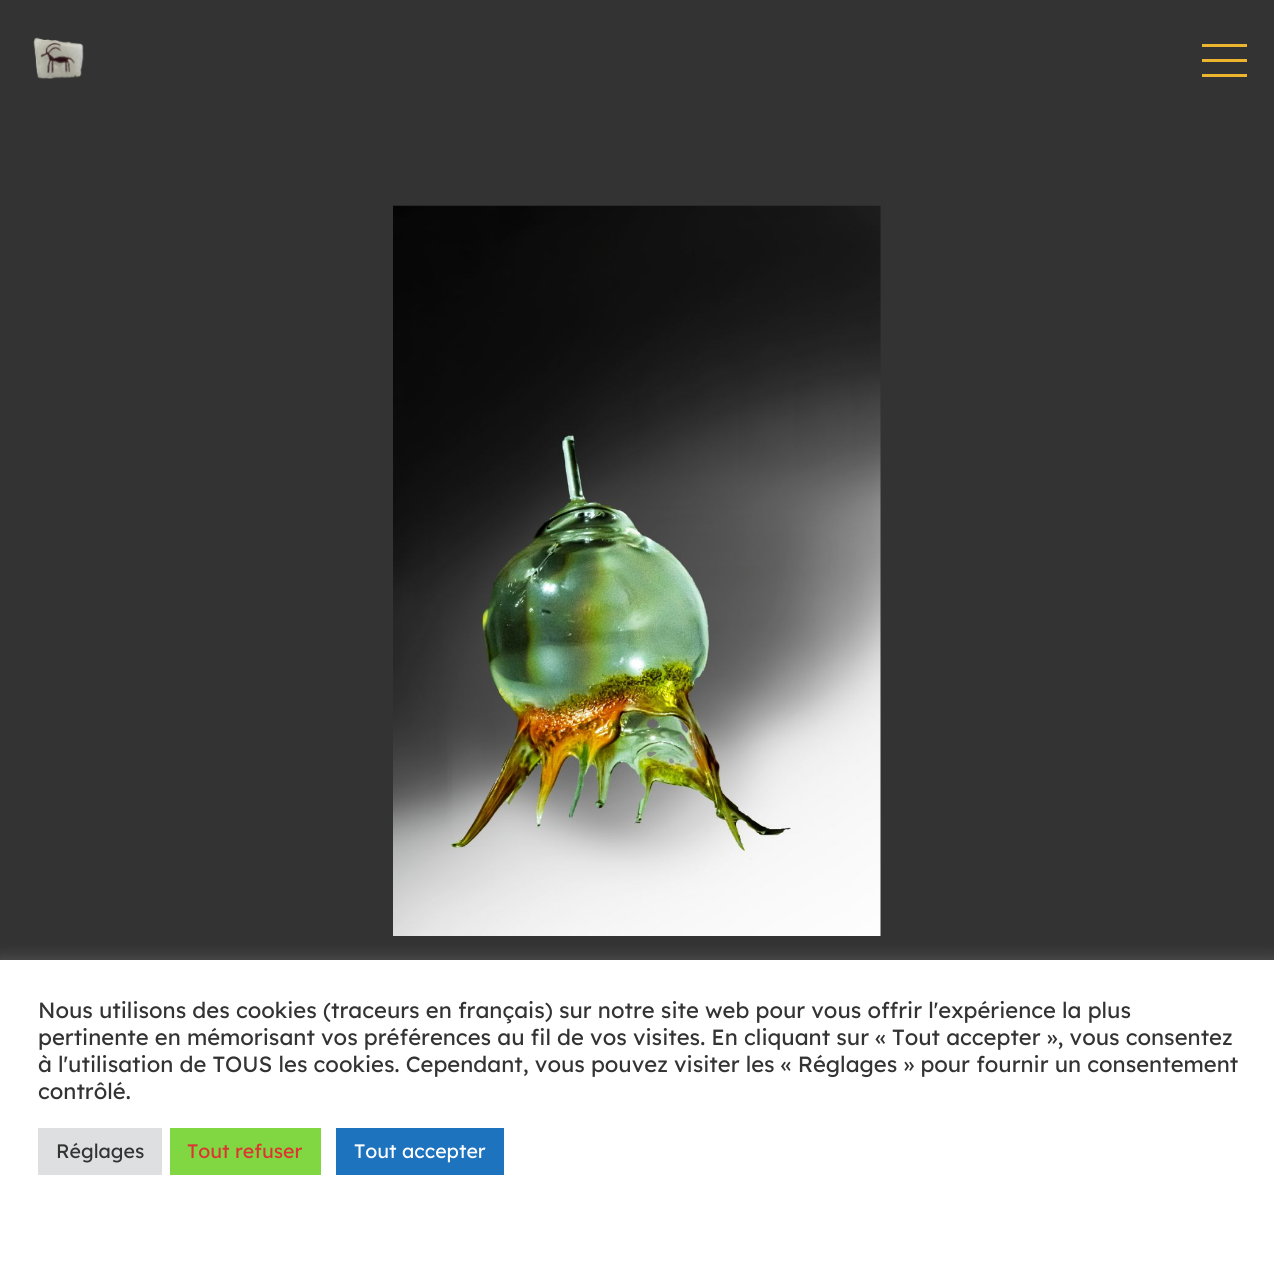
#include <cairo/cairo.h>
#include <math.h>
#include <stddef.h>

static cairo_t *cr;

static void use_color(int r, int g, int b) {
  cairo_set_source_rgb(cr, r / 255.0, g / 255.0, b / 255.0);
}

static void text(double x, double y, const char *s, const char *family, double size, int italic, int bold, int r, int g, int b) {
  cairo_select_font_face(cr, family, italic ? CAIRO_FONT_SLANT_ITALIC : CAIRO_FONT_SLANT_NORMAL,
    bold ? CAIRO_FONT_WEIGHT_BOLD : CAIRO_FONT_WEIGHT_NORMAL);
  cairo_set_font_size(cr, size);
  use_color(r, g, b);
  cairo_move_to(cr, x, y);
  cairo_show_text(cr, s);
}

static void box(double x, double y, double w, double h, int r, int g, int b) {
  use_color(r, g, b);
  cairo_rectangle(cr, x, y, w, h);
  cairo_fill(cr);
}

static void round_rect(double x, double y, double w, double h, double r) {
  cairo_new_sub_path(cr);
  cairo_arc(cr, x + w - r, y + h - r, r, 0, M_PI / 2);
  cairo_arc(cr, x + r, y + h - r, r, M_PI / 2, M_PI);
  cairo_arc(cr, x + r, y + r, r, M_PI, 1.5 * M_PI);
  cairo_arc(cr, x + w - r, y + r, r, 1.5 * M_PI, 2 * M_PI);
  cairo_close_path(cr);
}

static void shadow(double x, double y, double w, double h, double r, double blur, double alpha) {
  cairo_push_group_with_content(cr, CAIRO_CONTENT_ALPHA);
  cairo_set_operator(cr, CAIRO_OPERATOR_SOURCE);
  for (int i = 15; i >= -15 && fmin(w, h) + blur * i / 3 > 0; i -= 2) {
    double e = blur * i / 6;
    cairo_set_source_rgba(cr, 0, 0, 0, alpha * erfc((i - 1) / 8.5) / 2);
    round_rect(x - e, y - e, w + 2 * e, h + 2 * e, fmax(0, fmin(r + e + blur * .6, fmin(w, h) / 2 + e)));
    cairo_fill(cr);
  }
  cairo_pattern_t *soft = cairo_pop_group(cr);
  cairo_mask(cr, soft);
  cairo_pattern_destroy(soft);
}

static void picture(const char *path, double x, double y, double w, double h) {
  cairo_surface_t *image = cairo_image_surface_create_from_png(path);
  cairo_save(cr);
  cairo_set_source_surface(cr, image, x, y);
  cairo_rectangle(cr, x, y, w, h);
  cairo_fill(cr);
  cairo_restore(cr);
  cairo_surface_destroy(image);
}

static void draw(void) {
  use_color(51, 51, 51);
  cairo_paint(cr);
  picture("img_01.png", 33, 37, 51, 42);
  box(1202, 59, 45, 3, 237, 180, 45);
  box(1202, 44, 45, 3, 237, 180, 45);
  box(1202, 74, 45, 3, 237, 180, 45);
  picture("img_02.png", 393, 205, 488, 731);
  use_color(172, 171, 171);
  shadow(0, 959, 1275, 303, 0, 7.5, 0.3);
  box(0, 960, 1274, 302, 255, 255, 255);
  box(38, 1128, 124, 47, 222, 223, 224);
  box(170, 1128, 151, 47, 129, 215, 66);
  box(336, 1128, 168, 47, 30, 115, 190);
  text(38, 1018, "Nous utilisons des cookies (traceurs en français) sur notre site web pour vous offrir l'expérience la plus", "Lexend Deca", 22, 0, 0, 51, 51, 51);
  text(38, 1045, "pertinente en mémorisant vos préférences au fil de vos visites. En cliquant sur « Tout accepter », vous consentez", "Lexend Deca", 22, 0, 0, 51, 51, 51);
  text(38, 1072, "à l'utilisation de TOUS les cookies. Cependant, vous pouvez visiter les « Réglages » pour fournir un consentement", "Lexend Deca", 22, 0, 0, 51, 51, 51);
  text(38, 1099, "contrôlé.", "Lexend Deca", 22, 0, 0, 51, 51, 51);
  text(56, 1158, "Réglages", "Lexend Deca", 19.5, 0, 0, 51, 51, 51);
  text(187, 1158, "Tout refuser", "Lexend Deca", 19.5, 0, 0, 221, 51, 51);
  text(354, 1158, "Tout accepter", "Lexend Deca", 19.5, 0, 0, 255, 255, 255);
}

int main(void) {
  cairo_surface_t *surface = cairo_image_surface_create(CAIRO_FORMAT_RGB24, 1274, 1262);
  cr = cairo_create(surface);
  cairo_font_options_t *options = cairo_font_options_create();
  cairo_font_options_set_hint_metrics(options, CAIRO_HINT_METRICS_OFF);
  cairo_font_options_set_hint_style(options, CAIRO_HINT_STYLE_NONE);
  cairo_set_font_options(cr, options);
  cairo_set_miter_limit(cr, 4);
  draw();
  cairo_surface_write_to_png(surface, "out.png");
  cairo_font_options_destroy(options);
  cairo_destroy(cr);
  cairo_surface_destroy(surface);
  return 0;
}
